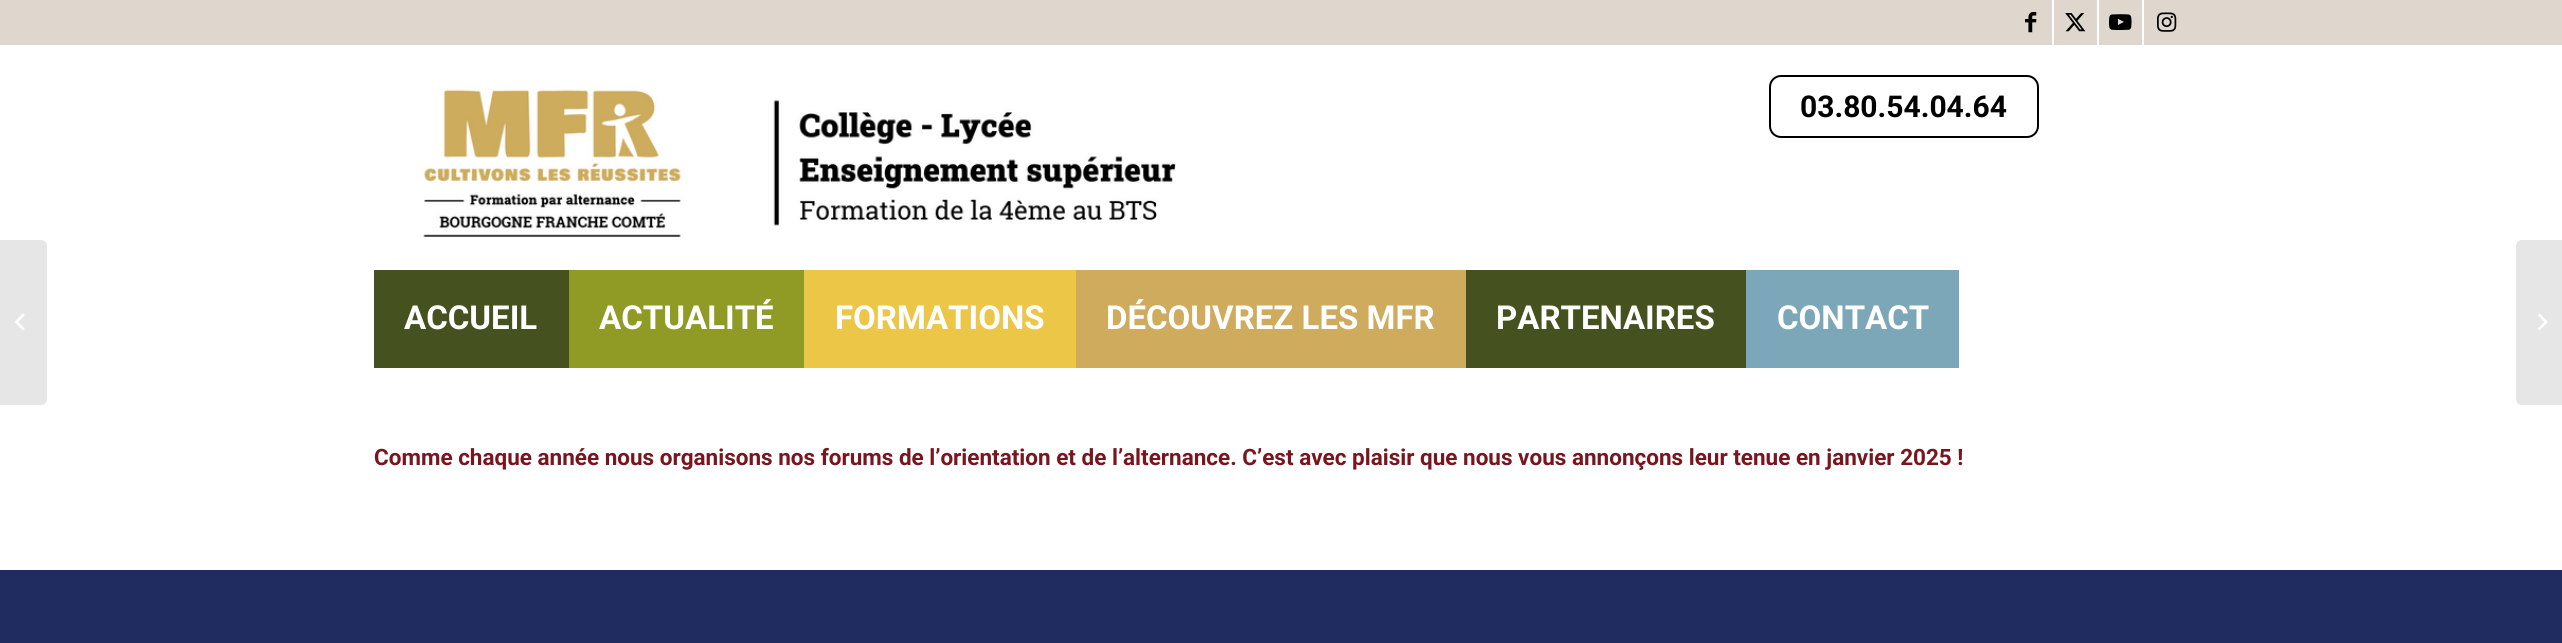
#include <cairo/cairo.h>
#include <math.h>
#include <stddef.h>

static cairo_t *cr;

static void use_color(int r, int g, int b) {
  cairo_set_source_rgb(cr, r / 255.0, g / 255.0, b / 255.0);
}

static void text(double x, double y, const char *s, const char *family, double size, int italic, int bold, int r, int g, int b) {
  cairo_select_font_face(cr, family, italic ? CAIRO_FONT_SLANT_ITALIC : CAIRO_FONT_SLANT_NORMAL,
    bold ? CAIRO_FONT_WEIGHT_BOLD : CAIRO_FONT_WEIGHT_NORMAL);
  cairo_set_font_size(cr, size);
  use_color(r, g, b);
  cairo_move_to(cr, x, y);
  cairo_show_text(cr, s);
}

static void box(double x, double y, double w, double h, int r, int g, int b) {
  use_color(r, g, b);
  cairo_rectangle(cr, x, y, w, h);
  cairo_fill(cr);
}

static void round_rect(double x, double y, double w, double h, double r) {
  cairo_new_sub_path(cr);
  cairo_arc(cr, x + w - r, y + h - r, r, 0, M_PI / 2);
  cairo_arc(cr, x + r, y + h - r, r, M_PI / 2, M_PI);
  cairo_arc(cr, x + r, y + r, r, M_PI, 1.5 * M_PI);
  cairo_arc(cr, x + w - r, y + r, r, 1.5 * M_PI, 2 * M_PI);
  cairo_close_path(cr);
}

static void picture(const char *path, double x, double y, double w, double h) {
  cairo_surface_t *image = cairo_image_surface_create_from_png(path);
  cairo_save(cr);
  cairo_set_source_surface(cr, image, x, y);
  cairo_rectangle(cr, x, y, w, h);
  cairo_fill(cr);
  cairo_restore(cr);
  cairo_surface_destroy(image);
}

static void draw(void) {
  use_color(255, 255, 255);
  cairo_paint(cr);
  use_color(230, 230, 230);
  cairo_new_path(cr);
  cairo_move_to(cr, 0, 240);
  cairo_line_to(cr, 41, 240);
  cairo_curve_to(cr, 44.5, 240, 47, 242.5, 47, 246);
  cairo_line_to(cr, 47, 399);
  cairo_curve_to(cr, 47, 402.5, 44.5, 405, 41, 405);
  cairo_line_to(cr, 0, 405);
  cairo_close_path(cr);
  cairo_fill(cr);
  picture("img_01.png", 15, 313, 10, 17);
  box(0, 0, 2562, 45, 223, 215, 205);
  box(2052, 0, 2, 45, 255, 255, 255);
  picture("img_02.png", 2025, 12, 12, 21);
  box(2097, 0, 2, 45, 255, 255, 255);
  picture("img_03.png", 2065, 13, 21, 19);
  box(2142, 0, 2, 45, 255, 255, 255);
  picture("img_04.png", 2109, 14, 23, 17);
  picture("img_05.png", 2157, 12, 20, 20);
  round_rect(1770, 76, 268, 61, 11);
  use_color(0, 0, 0);
  cairo_stroke(cr);
  picture("img_06.png", 423, 89, 753, 148);
  box(374, 270, 195, 98, 69, 82, 31);
  box(569, 270, 235, 98, 144, 155, 37);
  box(804, 270, 272, 98, 236, 199, 71);
  box(1076, 270, 390, 98, 206, 171, 93);
  box(1466, 270, 280, 98, 69, 82, 31);
  box(1746, 270, 213, 98, 124, 167, 185);
  box(0, 570, 2562, 73, 32, 44, 96);
  use_color(230, 230, 230);
  cairo_new_path(cr);
  cairo_move_to(cr, 2522, 240);
  cairo_line_to(cr, 2562, 240);
  cairo_line_to(cr, 2562, 405);
  cairo_line_to(cr, 2522, 405);
  cairo_curve_to(cr, 2518.5, 405, 2516, 402.5, 2516, 399);
  cairo_line_to(cr, 2516, 246);
  cairo_curve_to(cr, 2516, 242.5, 2518.5, 240, 2522, 240);
  cairo_close_path(cr);
  cairo_fill(cr);
  picture("img_07.png", 2538, 313, 10, 17);
  text(1800, 117, "03.80.54.04.64", "Roboto", 30, 0, 1, 0, 0, 0);
  text(404, 329, "ACCUEIL", "Roboto", 33, 0, 1, 255, 255, 255);
  text(599, 329, "ACTUALITÉ", "Roboto", 33, 0, 1, 255, 255, 255);
  text(835, 329, "FORMATIONS", "Roboto", 33, 0, 1, 255, 255, 255);
  text(1106, 329, "DÉCOUVREZ LES MFR", "Roboto", 33, 0, 1, 255, 255, 255);
  text(1496, 329, "PARTENAIRES", "Roboto", 33, 0, 1, 255, 255, 255);
  text(1777, 329, "CONTACT", "Roboto", 33, 0, 1, 255, 255, 255);
  text(374, 465, "Comme chaque année nous organisons nos forums de l’orientation et de l’alternance. C’est avec plaisir que nous vous annonçons leur tenue en janvier 2025 !", "Roboto", 22.5, 0, 1, 120, 21, 29);
}

int main(void) {
  cairo_surface_t *surface = cairo_image_surface_create(CAIRO_FORMAT_RGB24, 2562, 643);
  cr = cairo_create(surface);
  cairo_font_options_t *options = cairo_font_options_create();
  cairo_font_options_set_hint_metrics(options, CAIRO_HINT_METRICS_OFF);
  cairo_font_options_set_hint_style(options, CAIRO_HINT_STYLE_NONE);
  cairo_set_font_options(cr, options);
  cairo_set_miter_limit(cr, 4);
  draw();
  cairo_surface_write_to_png(surface, "out.png");
  cairo_font_options_destroy(options);
  cairo_destroy(cr);
  cairo_surface_destroy(surface);
  return 0;
}
